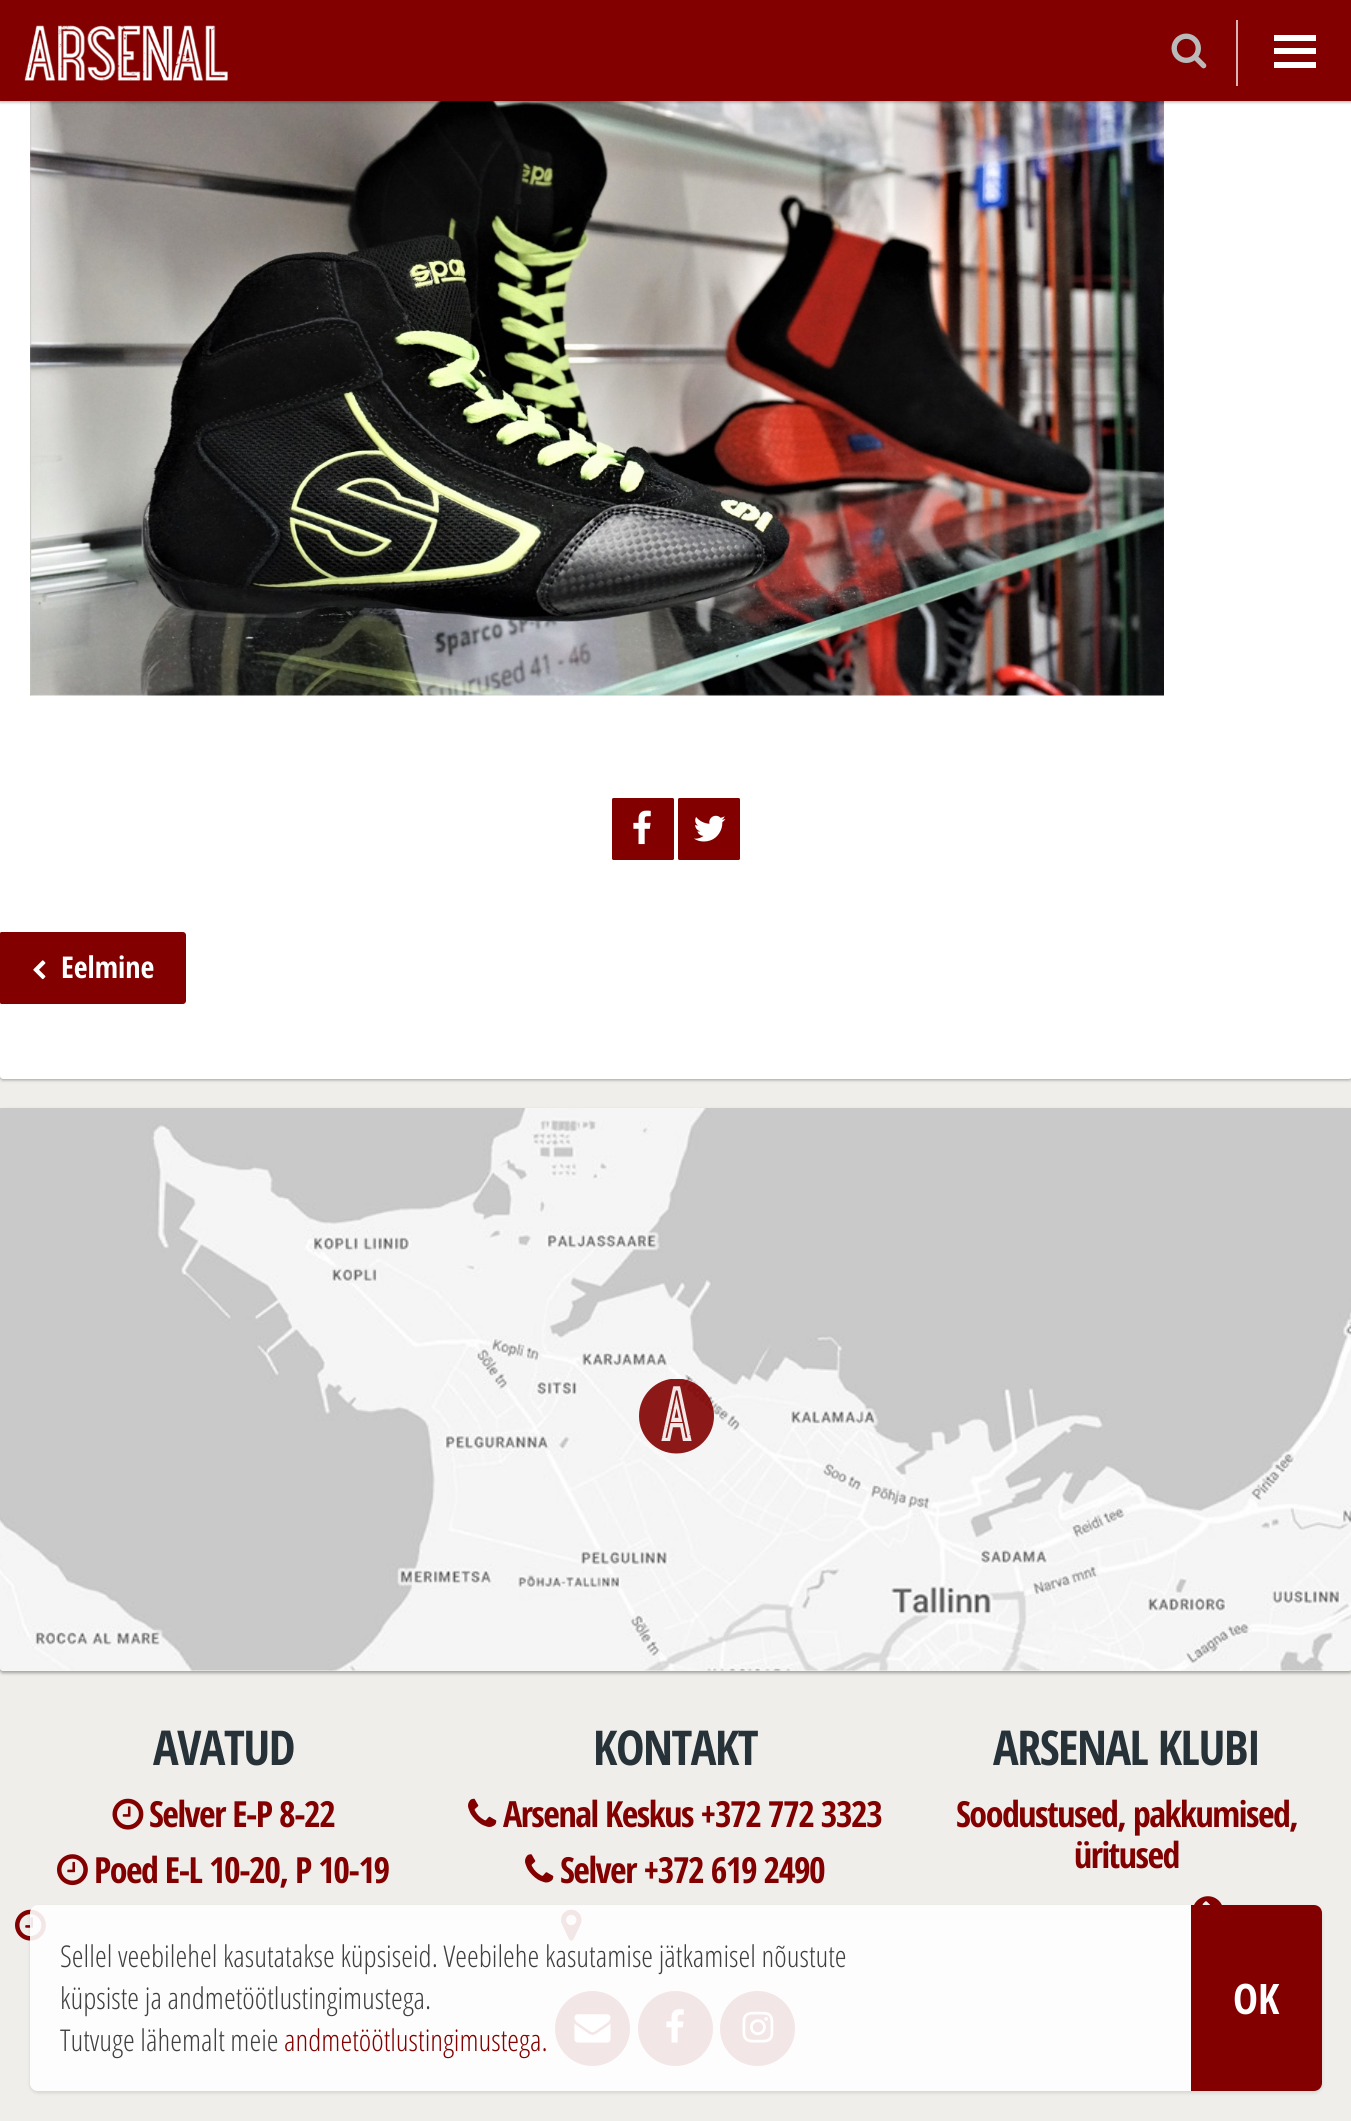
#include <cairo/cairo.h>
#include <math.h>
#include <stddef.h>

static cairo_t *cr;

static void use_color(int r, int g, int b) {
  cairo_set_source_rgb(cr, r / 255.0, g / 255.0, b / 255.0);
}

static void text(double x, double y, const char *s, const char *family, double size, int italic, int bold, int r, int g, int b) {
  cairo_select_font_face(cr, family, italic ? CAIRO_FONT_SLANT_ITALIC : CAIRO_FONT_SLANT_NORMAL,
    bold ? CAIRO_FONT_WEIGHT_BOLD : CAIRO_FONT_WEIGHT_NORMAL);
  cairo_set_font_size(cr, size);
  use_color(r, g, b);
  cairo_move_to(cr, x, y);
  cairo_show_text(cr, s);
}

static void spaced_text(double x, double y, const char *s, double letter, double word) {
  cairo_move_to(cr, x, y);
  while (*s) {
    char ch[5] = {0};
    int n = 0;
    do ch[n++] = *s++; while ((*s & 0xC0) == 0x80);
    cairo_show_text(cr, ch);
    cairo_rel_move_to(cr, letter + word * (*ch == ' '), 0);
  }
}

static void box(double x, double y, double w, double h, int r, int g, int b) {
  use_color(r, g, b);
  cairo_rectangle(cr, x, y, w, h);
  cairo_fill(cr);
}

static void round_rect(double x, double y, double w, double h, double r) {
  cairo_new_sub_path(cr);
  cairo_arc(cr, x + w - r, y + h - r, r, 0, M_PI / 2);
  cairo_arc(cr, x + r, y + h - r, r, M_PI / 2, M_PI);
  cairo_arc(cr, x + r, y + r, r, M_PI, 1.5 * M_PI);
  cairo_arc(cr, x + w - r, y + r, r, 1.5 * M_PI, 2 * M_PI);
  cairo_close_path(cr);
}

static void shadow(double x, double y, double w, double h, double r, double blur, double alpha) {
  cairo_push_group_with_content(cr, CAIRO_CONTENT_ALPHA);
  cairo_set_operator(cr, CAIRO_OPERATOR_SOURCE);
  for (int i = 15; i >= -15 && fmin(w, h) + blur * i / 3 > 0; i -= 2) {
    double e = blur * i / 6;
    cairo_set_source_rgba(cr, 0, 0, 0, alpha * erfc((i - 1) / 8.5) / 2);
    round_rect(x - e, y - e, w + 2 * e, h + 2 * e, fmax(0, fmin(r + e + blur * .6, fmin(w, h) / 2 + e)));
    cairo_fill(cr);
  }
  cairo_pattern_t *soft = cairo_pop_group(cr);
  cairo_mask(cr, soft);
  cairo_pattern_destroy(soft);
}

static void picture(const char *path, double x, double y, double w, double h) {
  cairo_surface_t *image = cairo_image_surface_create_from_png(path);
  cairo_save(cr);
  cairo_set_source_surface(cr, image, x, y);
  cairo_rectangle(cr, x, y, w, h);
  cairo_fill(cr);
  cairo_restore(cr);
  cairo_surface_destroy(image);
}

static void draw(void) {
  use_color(239, 238, 235);
  cairo_paint(cr);
  use_color(0, 0, 0);
  shadow(0, -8, 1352, 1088, 3, 1.5, 0.24);
  shadow(0, -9, 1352, 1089, 3, 2, 0.12);
  use_color(255, 255, 255);
  cairo_new_path(cr);
  cairo_move_to(cr, 0, -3);
  cairo_line_to(cr, 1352, -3);
  cairo_line_to(cr, 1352, 1076);
  cairo_curve_to(cr, 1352, 1077.5, 1350.5, 1079, 1349, 1079);
  cairo_line_to(cr, 3, 1079);
  cairo_curve_to(cr, 1.5, 1079, 0, 1077.5, 0, 1076);
  cairo_close_path(cr);
  cairo_fill(cr);
  picture("img_03.png", 30, 101, 1134, 595);
  use_color(0, 0, 0);
  shadow(0, 2, 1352, 100, 0, 1.5, 0.24);
  shadow(0, 2, 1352, 100, 0, 2, 0.12);
  box(0, 0, 1351, 101, 130, 0, 0);
  picture("img_01.png", 24, 25, 204, 56);
  box(1236, 20, 2, 66, 218, 179, 179);
  picture("img_02.png", 1171, 33, 36, 36);
  box(1274, 35, 42, 6, 255, 255, 255);
  box(1274, 48, 42, 6, 255, 255, 255);
  box(1274, 62, 42, 6, 255, 255, 255);
  use_color(130, 0, 0);
  round_rect(612, 798, 62, 62, 1.5);
  cairo_fill(cr);
  picture("img_04.png", 633, 810, 18, 35);
  round_rect(678, 798, 62, 62, 1.5);
  cairo_fill(cr);
  picture("img_05.png", 694, 815, 32, 27);
  cairo_new_path(cr);
  cairo_move_to(cr, 1.5, 933);
  cairo_line_to(cr, 183, 933);
  cairo_curve_to(cr, 184, 933, 185, 934, 185, 935);
  cairo_line_to(cr, 185, 1001);
  cairo_curve_to(cr, 185, 1002, 184, 1003, 183, 1003);
  cairo_line_to(cr, 1.5, 1003);
  cairo_curve_to(cr, 1, 1003, 1, 1003, 1, 1002.5);
  cairo_line_to(cr, 1, 933.5);
  cairo_curve_to(cr, 1, 933, 1, 933, 1.5, 933);
  cairo_close_path(cr);
  cairo_fill_preserve(cr);
  cairo_stroke(cr);
  picture("img_06.png", 33, 960, 13, 20);
  use_color(0, 0, 0);
  shadow(0, 1110, 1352, 563, 3, 1.5, 0.24);
  shadow(0, 1110, 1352, 563, 3, 2, 0.12);
  use_color(249, 248, 245);
  cairo_new_path(cr);
  cairo_move_to(cr, 0, 1109);
  cairo_line_to(cr, 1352, 1109);
  cairo_line_to(cr, 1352, 1668);
  cairo_curve_to(cr, 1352, 1669.5, 1350.5, 1671, 1349, 1671);
  cairo_line_to(cr, 3, 1671);
  cairo_curve_to(cr, 1.5, 1671, 0, 1669.5, 0, 1668);
  cairo_close_path(cr);
  cairo_fill(cr);
  picture("img_07.png", 0, 1108, 1351, 563);
  picture("img_08.png", 639, 1379, 75, 75);
  picture("img_09.png", 112, 1798, 32, 32);
  picture("img_10.png", 57, 1854, 31, 32);
  picture("img_11.png", 15, 1909, 31, 32);
  picture("img_12.png", 468, 1798, 29, 29);
  picture("img_13.png", 525, 1854, 29, 29);
  picture("img_14.png", 561, 1909, 21, 32);
  use_color(130, 0, 0);
  cairo_arc(cr, 592.5, 2028.5, 37.5, 0, 2 * M_PI);
  cairo_fill(cr);
  picture("img_15.png", 574, 2014, 37, 29);
  cairo_arc(cr, 675.5, 2028.5, 37.5, 0, 2 * M_PI);
  cairo_fill(cr);
  picture("img_16.png", 666, 2009, 18, 34);
  cairo_arc(cr, 757.5, 2028.5, 37.5, 0, 2 * M_PI);
  cairo_fill(cr);
  picture("img_17.png", 742, 2011, 32, 32);
  picture("img_18.png", 1194, 1896, 28, 9);
  cairo_save(cr);
  cairo_set_fill_rule(cr, CAIRO_FILL_RULE_EVEN_ODD);
  cairo_new_path(cr);
  cairo_move_to(cr, 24, 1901);
  cairo_line_to(cr, 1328, 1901);
  cairo_line_to(cr, 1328, 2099);
  cairo_line_to(cr, 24, 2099);
  cairo_close_path(cr);
  cairo_move_to(cr, 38, 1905);
  cairo_line_to(cr, 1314, 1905);
  cairo_curve_to(cr, 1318.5, 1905, 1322, 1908.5, 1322, 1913);
  cairo_line_to(cr, 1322, 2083);
  cairo_curve_to(cr, 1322, 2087.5, 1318.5, 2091, 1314, 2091);
  cairo_line_to(cr, 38, 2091);
  cairo_curve_to(cr, 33.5, 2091, 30, 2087.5, 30, 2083);
  cairo_line_to(cr, 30, 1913);
  cairo_curve_to(cr, 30, 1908.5, 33.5, 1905, 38, 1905);
  cairo_close_path(cr);
  cairo_clip(cr);
  use_color(0, 0, 0);
  shadow(30, 1907, 1292, 186, 8, 1.5, 0.06);
  cairo_restore(cr);
  cairo_save(cr);
  cairo_set_fill_rule(cr, CAIRO_FILL_RULE_EVEN_ODD);
  cairo_new_path(cr);
  cairo_move_to(cr, 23, 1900);
  cairo_line_to(cr, 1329, 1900);
  cairo_line_to(cr, 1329, 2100);
  cairo_line_to(cr, 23, 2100);
  cairo_close_path(cr);
  cairo_move_to(cr, 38, 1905);
  cairo_line_to(cr, 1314, 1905);
  cairo_curve_to(cr, 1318.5, 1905, 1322, 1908.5, 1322, 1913);
  cairo_line_to(cr, 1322, 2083);
  cairo_curve_to(cr, 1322, 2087.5, 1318.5, 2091, 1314, 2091);
  cairo_line_to(cr, 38, 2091);
  cairo_curve_to(cr, 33.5, 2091, 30, 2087.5, 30, 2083);
  cairo_line_to(cr, 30, 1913);
  cairo_curve_to(cr, 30, 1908.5, 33.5, 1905, 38, 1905);
  cairo_close_path(cr);
  cairo_clip(cr);
  use_color(0, 0, 0);
  shadow(30, 1907, 1292, 186, 8, 2, 0.06);
  cairo_restore(cr);
  cairo_set_source_rgba(cr, 1, 1, 1, 0.9);
  round_rect(30, 1905, 1292, 186, 8);
  cairo_fill(cr);
  use_color(130, 0, 0);
  cairo_new_path(cr);
  cairo_move_to(cr, 1191, 1905);
  cairo_line_to(cr, 1314, 1905);
  cairo_curve_to(cr, 1318.5, 1905, 1322, 1908.5, 1322, 1913);
  cairo_line_to(cr, 1322, 2083);
  cairo_curve_to(cr, 1322, 2087.5, 1318.5, 2091, 1314, 2091);
  cairo_line_to(cr, 1191, 2091);
  cairo_close_path(cr);
  cairo_fill(cr);
  text(61, 978, "Eelmine", "Open Sans Condensed", 30, 0, 1, 255, 255, 255);
  cairo_set_font_size(cr, 48);
  use_color(38, 50, 56);
  spaced_text(153, 1765, "AVATUD", -1.5, 0);
  cairo_set_font_size(cr, 36);
  use_color(130, 0, 0);
  spaced_text(149, 1827, "Selver E-P 8-22", -1.5, 0);
  spaced_text(94, 1883, "Poed E-L 10-20, P 10-19", -1.5, 0);
  cairo_set_font_size(cr, 48);
  use_color(38, 50, 56);
  spaced_text(593, 1765, "KONTAKT", -1.5, 0);
  cairo_set_font_size(cr, 36);
  use_color(130, 0, 0);
  spaced_text(503, 1827, "Arsenal Keskus +372 772 3323", -1.5, 0);
  spaced_text(560, 1883, "Selver +372 619 2490", -1.5, 0);
  cairo_set_font_size(cr, 48);
  use_color(38, 50, 56);
  spaced_text(993, 1765, "ARSENAL KLUBI", -1.5, 0);
  cairo_set_font_size(cr, 36);
  use_color(130, 0, 0);
  spaced_text(956, 1827, "Soodustused, pakkumised,", -1.5, 0);
  spaced_text(1074, 1868, "üritused", -1.5, 0);
  text(60, 1967, "Sellel veebilehel kasutatakse küpsiseid. Veebilehe kasutamise jätkamisel nõustute", "Open Sans Condensed Light", 30, 0, 0, 63, 63, 63);
  text(60, 2009, "küpsiste ja andmetöötlustingimustega.", "Open Sans Condensed Light", 30, 0, 0, 63, 63, 63);
  text(60, 2051, "Tutvuge lähemalt meie", "Open Sans Condensed Light", 30, 0, 0, 63, 63, 63);
  text(284, 2051, "andmetöötlustingimustega.", "Open Sans Condensed Light", 30, 0, 0, 130, 0, 0);
  text(1233, 2014, "OK", "Open Sans Condensed", 42, 0, 1, 255, 255, 255);
}

int main(void) {
  cairo_surface_t *surface = cairo_image_surface_create(CAIRO_FORMAT_RGB24, 1351, 2121);
  cr = cairo_create(surface);
  cairo_font_options_t *options = cairo_font_options_create();
  cairo_font_options_set_hint_metrics(options, CAIRO_HINT_METRICS_OFF);
  cairo_font_options_set_hint_style(options, CAIRO_HINT_STYLE_NONE);
  cairo_set_font_options(cr, options);
  cairo_set_miter_limit(cr, 4);
  draw();
  cairo_surface_write_to_png(surface, "out.png");
  cairo_font_options_destroy(options);
  cairo_destroy(cr);
  cairo_surface_destroy(surface);
  return 0;
}
